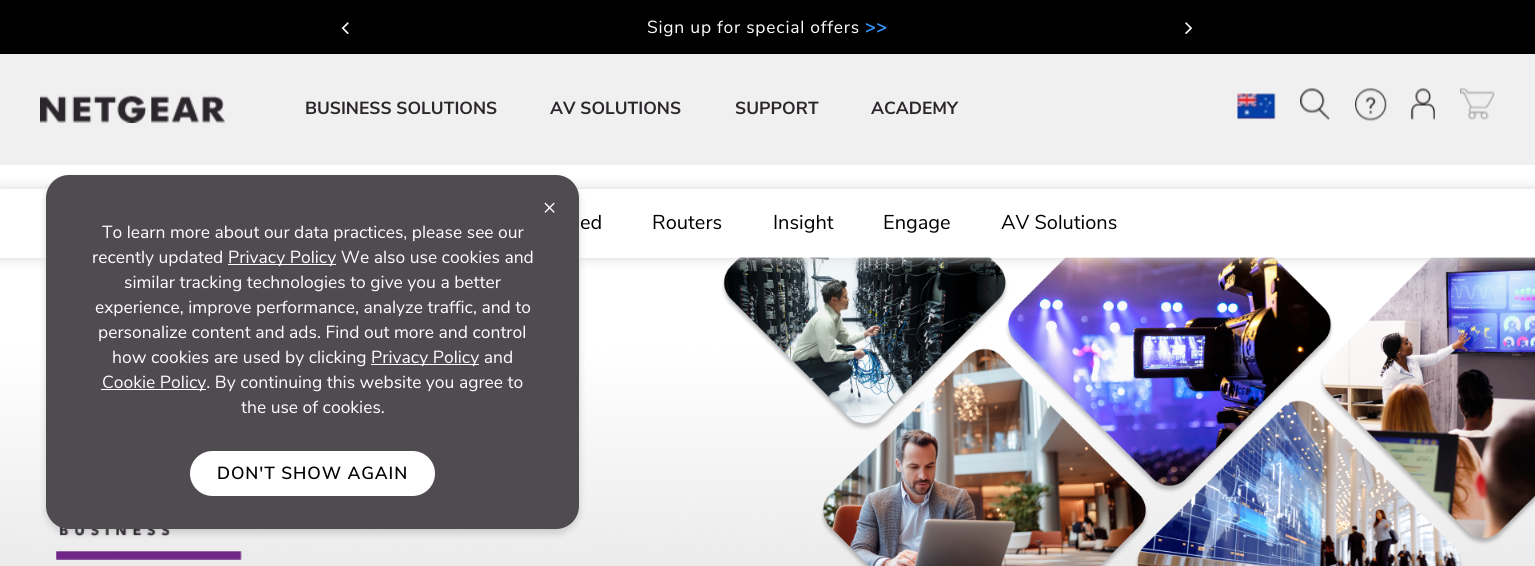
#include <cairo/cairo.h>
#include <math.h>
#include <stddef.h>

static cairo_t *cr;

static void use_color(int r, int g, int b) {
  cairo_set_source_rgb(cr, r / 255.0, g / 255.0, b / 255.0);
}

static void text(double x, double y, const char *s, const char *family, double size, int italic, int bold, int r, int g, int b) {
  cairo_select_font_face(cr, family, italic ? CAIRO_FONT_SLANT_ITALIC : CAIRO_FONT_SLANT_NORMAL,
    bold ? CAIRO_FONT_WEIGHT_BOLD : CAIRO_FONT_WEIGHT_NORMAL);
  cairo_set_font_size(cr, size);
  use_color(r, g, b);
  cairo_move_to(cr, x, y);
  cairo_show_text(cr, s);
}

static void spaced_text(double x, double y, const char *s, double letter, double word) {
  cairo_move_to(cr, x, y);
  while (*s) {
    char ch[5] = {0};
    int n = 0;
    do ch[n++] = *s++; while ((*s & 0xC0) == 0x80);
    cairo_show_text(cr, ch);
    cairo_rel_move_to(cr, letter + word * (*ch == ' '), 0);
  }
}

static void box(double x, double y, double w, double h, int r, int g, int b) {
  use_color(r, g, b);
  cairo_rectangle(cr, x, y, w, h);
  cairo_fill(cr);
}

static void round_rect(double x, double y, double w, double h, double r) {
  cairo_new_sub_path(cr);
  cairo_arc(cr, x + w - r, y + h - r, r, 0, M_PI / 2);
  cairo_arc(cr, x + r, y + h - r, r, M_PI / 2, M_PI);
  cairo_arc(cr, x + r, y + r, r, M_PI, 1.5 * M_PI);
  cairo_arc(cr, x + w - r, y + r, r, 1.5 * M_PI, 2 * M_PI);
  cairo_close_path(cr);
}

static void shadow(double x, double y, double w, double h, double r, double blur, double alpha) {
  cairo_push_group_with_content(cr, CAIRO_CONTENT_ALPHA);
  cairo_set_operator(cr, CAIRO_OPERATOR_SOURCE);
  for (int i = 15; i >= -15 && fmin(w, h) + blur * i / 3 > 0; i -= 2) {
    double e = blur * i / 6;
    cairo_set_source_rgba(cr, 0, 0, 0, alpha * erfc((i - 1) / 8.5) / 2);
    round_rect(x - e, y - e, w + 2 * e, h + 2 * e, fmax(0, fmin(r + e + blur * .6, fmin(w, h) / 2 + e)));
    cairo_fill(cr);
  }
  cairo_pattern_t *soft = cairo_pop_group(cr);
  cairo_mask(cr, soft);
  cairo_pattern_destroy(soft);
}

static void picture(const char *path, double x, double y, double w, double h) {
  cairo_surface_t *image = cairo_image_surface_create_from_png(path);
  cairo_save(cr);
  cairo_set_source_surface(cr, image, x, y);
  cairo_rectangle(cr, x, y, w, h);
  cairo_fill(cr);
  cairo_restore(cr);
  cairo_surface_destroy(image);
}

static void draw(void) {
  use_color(255, 255, 255);
  cairo_paint(cr);
  box(0, 0, 1535, 54, 0, 0, 0);
  picture("img_01.png", 341, 22, 8, 12);
  picture("img_02.png", 1185, 22, 7, 12);
  box(0, 54, 1535, 111, 241, 240, 240);
  picture("img_03.png", 40, 95, 185, 28);
  picture("img_04.png", 1237, 93, 39, 27);
  picture("img_05.png", 1300, 88, 30, 33);
  picture("img_06.png", 1355, 88, 32, 33);
  picture("img_07.png", 1411, 88, 24, 32);
  picture("img_08.png", 1460, 88, 35, 32);
  picture("img_09.png", 0, 257, 1535, 309);
  picture("img_10.png", 56, 526, 186, 34);
  use_color(0, 0, 0);
  shadow(46, 179, 533, 354, 23, 4, 0.16);
  cairo_save(cr);
  cairo_set_fill_rule(cr, CAIRO_FILL_RULE_EVEN_ODD);
  cairo_new_path(cr);
  cairo_move_to(cr, 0, 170);
  cairo_line_to(cr, 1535, 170);
  cairo_line_to(cr, 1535, 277);
  cairo_line_to(cr, 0, 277);
  cairo_close_path(cr);
  cairo_move_to(cr, 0, 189);
  cairo_line_to(cr, 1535, 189);
  cairo_line_to(cr, 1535, 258);
  cairo_line_to(cr, 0, 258);
  cairo_close_path(cr);
  cairo_clip(cr);
  use_color(214, 214, 214);
  shadow(0, 189, 1535, 69, 0, 6, 1);
  cairo_restore(cr);
  use_color(80, 75, 81);
  round_rect(46, 175, 533, 354, 23);
  cairo_fill(cr);
  box(228, 264, 108, 1, 255, 255, 255);
  box(371, 364, 108, 1, 255, 255, 255);
  box(101, 389, 105, 1, 255, 255, 255);
  round_rect(191.5, 452.5, 242, 42, 21);
  cairo_fill_preserve(cr);
  cairo_set_line_width(cr, 3);
  cairo_stroke(cr);
  cairo_select_font_face(cr, "Nunito Sans", CAIRO_FONT_SLANT_NORMAL, CAIRO_FONT_WEIGHT_NORMAL);
  cairo_set_font_size(cr, 17.5);
  spaced_text(647, 33, "Sign up for special offers", 0.75, 0);
  cairo_select_font_face(cr, "Nunito Sans", CAIRO_FONT_SLANT_NORMAL, CAIRO_FONT_WEIGHT_BOLD);
  use_color(51, 153, 255);
  spaced_text(865, 33, ">>", 0.75, 0);
  text(305, 114, "BUSINESS SOLUTIONS", "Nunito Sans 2", 17.5, 0, 1, 43, 38, 43);
  text(550, 114, "AV SOLUTIONS", "Nunito Sans 2", 17.5, 0, 1, 43, 38, 43);
  text(735, 114, "SUPPORT", "Nunito Sans 2", 17.5, 0, 1, 43, 38, 43);
  text(871, 114, "ACADEMY", "Nunito Sans 2", 17.5, 0, 1, 43, 38, 43);
  text(543, 214, "×", "Nunito Sans", 22, 0, 0, 255, 255, 255);
  text(102, 238, "To learn more about our data practices, please see our", "Nunito Sans", 17.5, 0, 0, 255, 255, 255);
  text(92, 263, "recently updated", "Nunito Sans", 17.5, 0, 0, 255, 255, 255);
  text(228, 263, "Privacy Policy We also use cookies and", "Nunito Sans", 17.5, 0, 0, 255, 255, 255);
  text(124, 288, "similar tracking technologies to give you a better", "Nunito Sans", 17.5, 0, 0, 255, 255, 255);
  text(95, 313, "experience, improve performance, analyze traffic, and to", "Nunito Sans", 17.5, 0, 0, 255, 255, 255);
  text(98, 338, "personalize content and ads. Find out more and control", "Nunito Sans", 17.5, 0, 0, 255, 255, 255);
  text(112, 363, "how cookies are used by clicking", "Nunito Sans", 17.5, 0, 0, 255, 255, 255);
  text(371, 363, "Privacy Policy and", "Nunito Sans", 17.5, 0, 0, 255, 255, 255);
  text(102, 388, "Cookie Policy. By continuing this website you agree to", "Nunito Sans", 17.5, 0, 0, 255, 255, 255);
  text(241, 413, "the use of cookies.", "Nunito Sans", 17.5, 0, 0, 255, 255, 255);
  cairo_select_font_face(cr, "Nunito Sans SemiBold", CAIRO_FONT_SLANT_NORMAL, CAIRO_FONT_WEIGHT_NORMAL);
  use_color(0, 0, 0);
  spaced_text(217, 479, "DON'T SHOW AGAIN", 0.9, 0);
  text(580, 229, "ed", "Nunito Sans", 20, 0, 0, 0, 0, 0);
  text(652, 229, "Routers", "Nunito Sans", 20, 0, 0, 0, 0, 0);
  text(773, 229, "Insight", "Nunito Sans", 20, 0, 0, 0, 0, 0);
  text(883, 229, "Engage", "Nunito Sans", 20, 0, 0, 0, 0, 0);
  text(1001, 229, "AV Solutions", "Nunito Sans", 20, 0, 0, 0, 0, 0);
}

int main(void) {
  cairo_surface_t *surface = cairo_image_surface_create(CAIRO_FORMAT_RGB24, 1535, 566);
  cr = cairo_create(surface);
  cairo_font_options_t *options = cairo_font_options_create();
  cairo_font_options_set_hint_metrics(options, CAIRO_HINT_METRICS_OFF);
  cairo_font_options_set_hint_style(options, CAIRO_HINT_STYLE_NONE);
  cairo_set_font_options(cr, options);
  cairo_set_miter_limit(cr, 4);
  draw();
  cairo_surface_write_to_png(surface, "out.png");
  cairo_font_options_destroy(options);
  cairo_destroy(cr);
  cairo_surface_destroy(surface);
  return 0;
}
